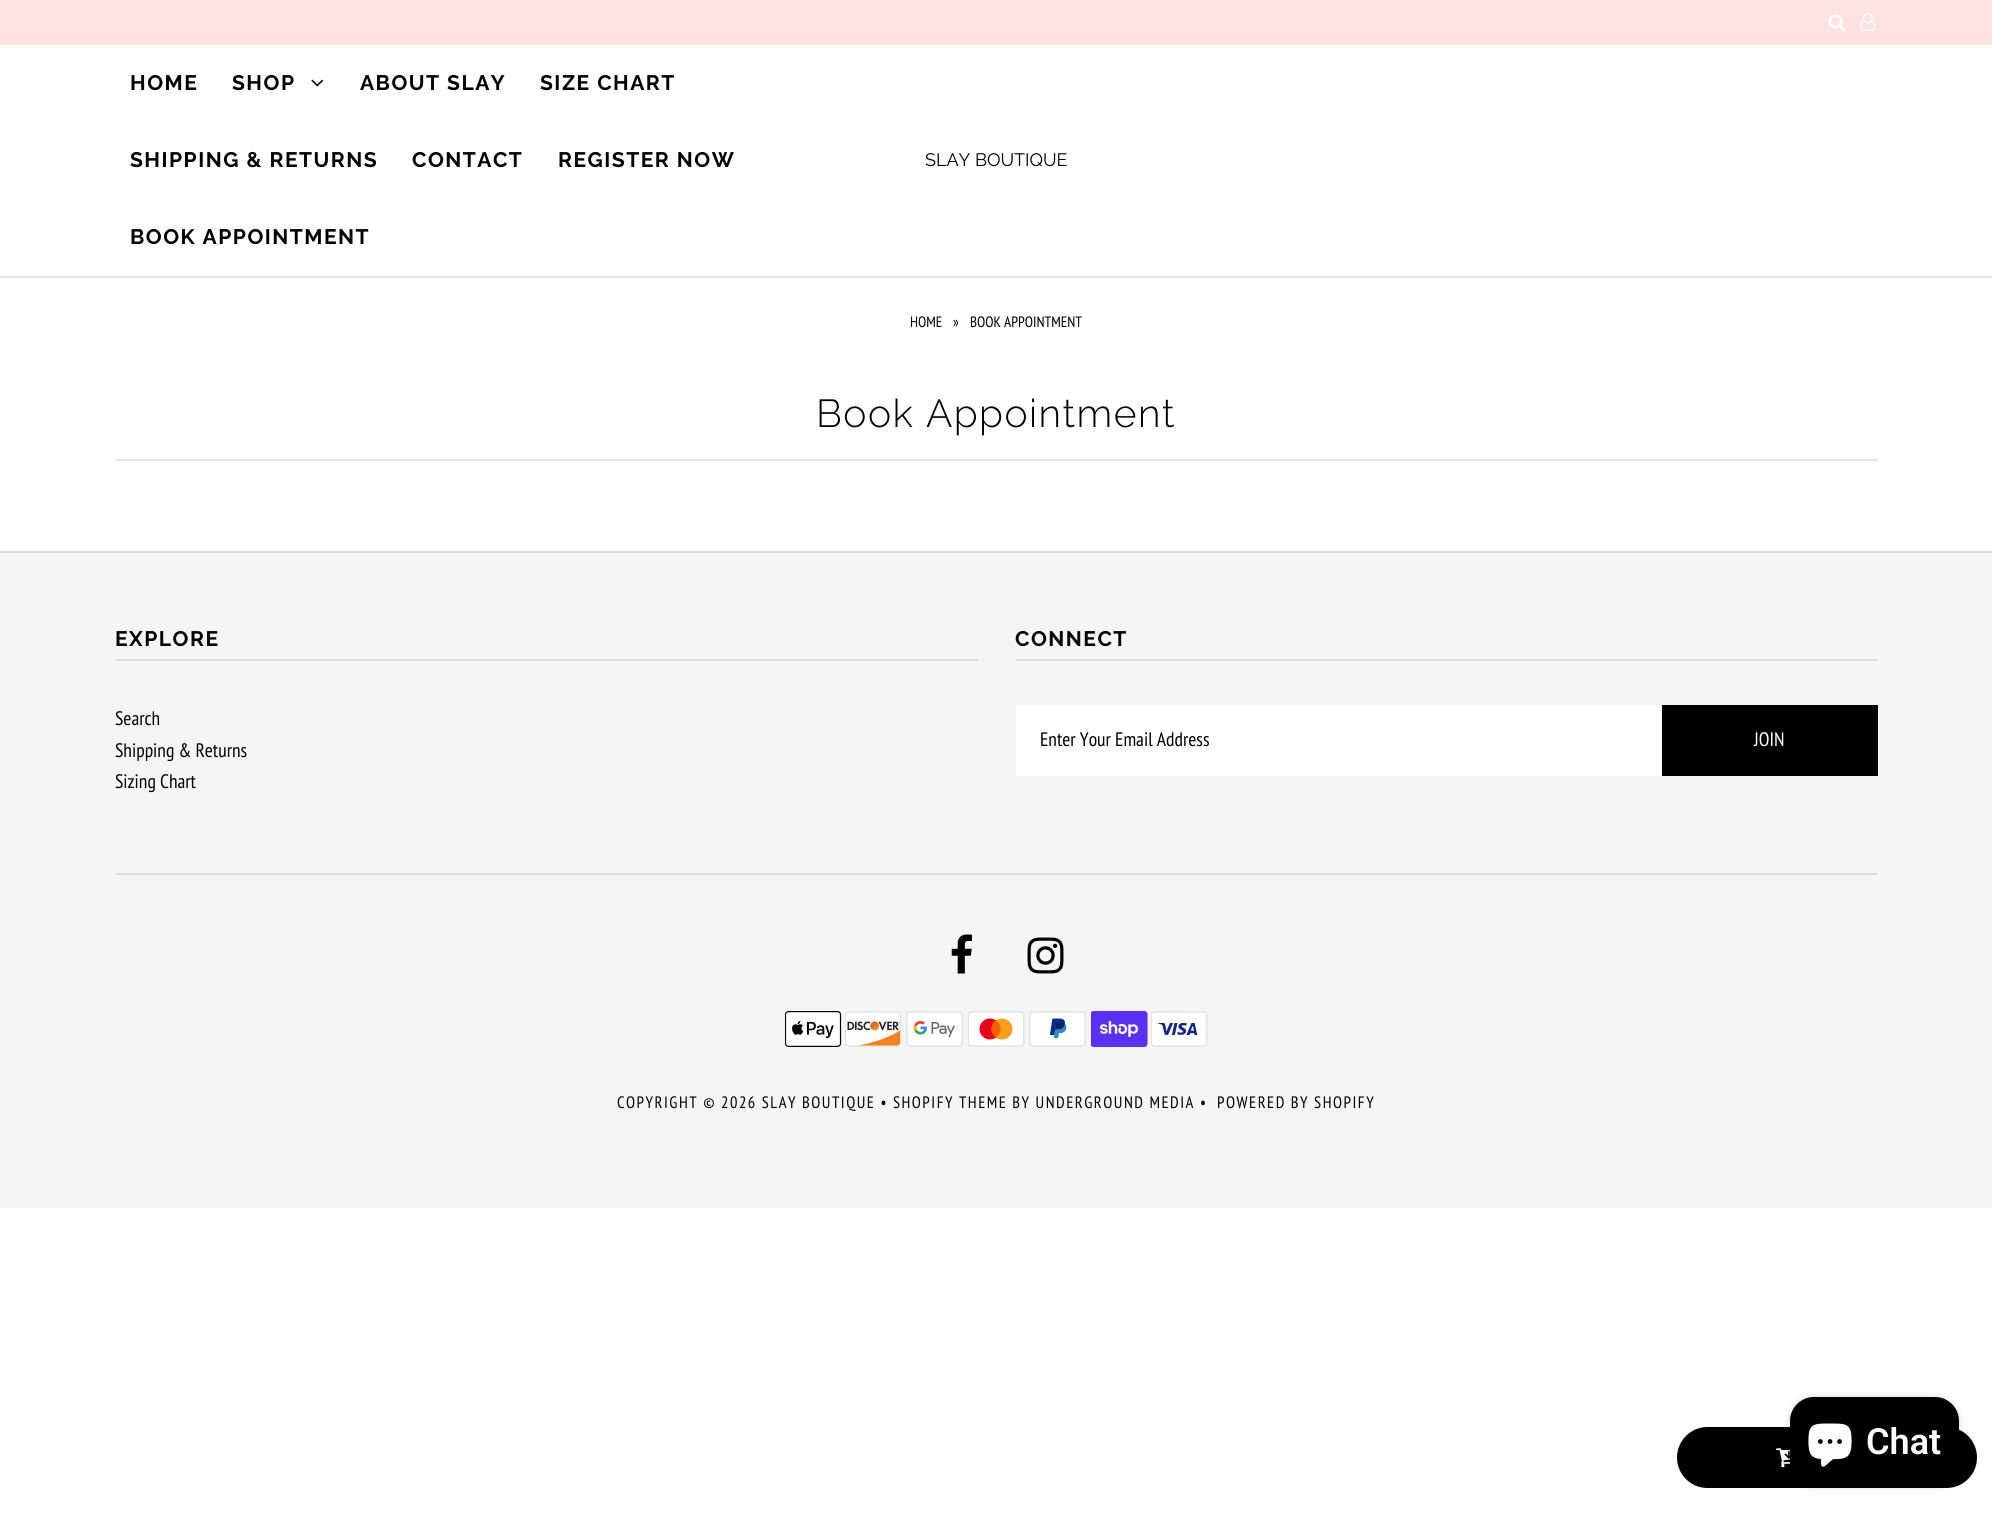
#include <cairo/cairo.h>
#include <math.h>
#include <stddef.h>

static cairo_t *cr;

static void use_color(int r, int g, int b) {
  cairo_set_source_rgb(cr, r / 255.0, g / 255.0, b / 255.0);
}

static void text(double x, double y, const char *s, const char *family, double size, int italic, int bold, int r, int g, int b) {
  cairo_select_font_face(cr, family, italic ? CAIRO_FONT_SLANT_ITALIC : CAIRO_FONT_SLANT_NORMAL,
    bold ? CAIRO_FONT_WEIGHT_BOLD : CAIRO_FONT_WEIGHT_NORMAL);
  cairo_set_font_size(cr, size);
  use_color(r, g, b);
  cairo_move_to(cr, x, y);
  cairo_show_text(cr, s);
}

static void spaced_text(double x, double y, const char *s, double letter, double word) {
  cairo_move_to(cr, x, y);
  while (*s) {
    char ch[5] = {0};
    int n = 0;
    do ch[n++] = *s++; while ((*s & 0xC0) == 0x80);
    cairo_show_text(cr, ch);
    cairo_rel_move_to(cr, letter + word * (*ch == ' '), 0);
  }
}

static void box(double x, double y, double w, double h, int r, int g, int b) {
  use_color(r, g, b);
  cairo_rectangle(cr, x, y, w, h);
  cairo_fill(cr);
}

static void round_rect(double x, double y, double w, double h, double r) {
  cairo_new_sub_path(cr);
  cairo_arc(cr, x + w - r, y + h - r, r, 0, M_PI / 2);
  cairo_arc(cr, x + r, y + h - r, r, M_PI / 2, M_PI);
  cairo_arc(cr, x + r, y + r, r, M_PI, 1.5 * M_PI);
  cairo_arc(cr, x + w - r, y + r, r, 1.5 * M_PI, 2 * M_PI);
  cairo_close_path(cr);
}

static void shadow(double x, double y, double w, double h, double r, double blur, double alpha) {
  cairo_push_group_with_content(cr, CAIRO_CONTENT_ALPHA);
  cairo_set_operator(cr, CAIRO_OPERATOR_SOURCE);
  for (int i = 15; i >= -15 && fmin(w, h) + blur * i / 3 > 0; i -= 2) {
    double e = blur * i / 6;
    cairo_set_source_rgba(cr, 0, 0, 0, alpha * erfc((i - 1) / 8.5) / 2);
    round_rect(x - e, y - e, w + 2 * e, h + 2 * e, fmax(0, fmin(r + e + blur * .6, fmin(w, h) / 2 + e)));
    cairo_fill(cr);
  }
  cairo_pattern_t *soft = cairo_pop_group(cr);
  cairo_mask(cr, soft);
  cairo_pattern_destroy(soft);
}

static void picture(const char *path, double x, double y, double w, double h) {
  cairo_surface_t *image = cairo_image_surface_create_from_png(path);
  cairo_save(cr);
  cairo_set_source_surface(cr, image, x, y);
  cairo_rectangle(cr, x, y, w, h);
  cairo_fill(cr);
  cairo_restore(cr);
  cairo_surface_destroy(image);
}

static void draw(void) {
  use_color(255, 255, 255);
  cairo_paint(cr);
  box(0, 276, 1992, 2, 229, 229, 229);
  box(0, 0, 1992, 45, 255, 227, 226);
  picture("img_01.png", 1828, 14, 17, 17);
  picture("img_02.png", 1860, 13, 16, 18);
  picture("img_03.png", 311, 79, 13, 8);
  box(116, 459, 1762, 2, 229, 229, 229);
  box(0, 553, 1992, 655, 245, 245, 245);
  box(0, 551, 1992, 2, 221, 221, 221);
  box(116, 659, 862, 2, 221, 221, 221);
  box(1016, 659, 862, 2, 221, 221, 221);
  box(1016, 705, 646, 71, 255, 255, 255);
  box(1662, 705, 216, 71, 0, 0, 0);
  box(116, 873, 1762, 2, 221, 221, 221);
  picture("img_04.png", 951, 934, 21, 40);
  picture("img_05.png", 1027, 937, 37, 37);
  picture("img_06.png", 785, 1011, 57, 36);
  picture("img_07.png", 845, 1011, 57, 36);
  picture("img_08.png", 906, 1011, 57, 36);
  picture("img_09.png", 968, 1011, 57, 36);
  picture("img_10.png", 1029, 1011, 57, 36);
  picture("img_11.png", 1091, 1011, 57, 36);
  picture("img_12.png", 1151, 1011, 57, 36);
  use_color(0, 0, 0);
  round_rect(1677, 1427, 300, 61, 30.5);
  cairo_fill(cr);
  picture("img_13.png", 1776, 1448, 15, 20);
  use_color(0, 0, 0);
  shadow(1790, 1397, 169, 90, 24, 4, 0.15);
  use_color(0, 0, 0);
  round_rect(1790, 1397, 169, 90, 24);
  cairo_fill(cr);
  picture("img_14.png", 1808, 1423, 44, 44);
  cairo_select_font_face(cr, "Raleway", CAIRO_FONT_SLANT_NORMAL, CAIRO_FONT_WEIGHT_BOLD);
  cairo_set_font_size(cr, 21);
  spaced_text(130, 90, "HOME", 1.5, 0);
  spaced_text(232, 90, "SHOP", 1.5, 0);
  spaced_text(360, 90, "ABOUT SLAY", 1.5, 0);
  spaced_text(540, 90, "SIZE CHART", 1.5, 0);
  spaced_text(130, 167, "SHIPPING & RETURNS", 1.5, 0);
  spaced_text(412, 167, "CONTACT", 1.5, 0);
  spaced_text(558, 167, "REGISTER NOW", 1.5, 0);
  spaced_text(130, 244, "BOOK APPOINTMENT", 1.5, 0);
  text(925, 166, "SLAY BOUTIQUE", "Raleway", 18, 0, 0, 0, 0, 0);
  text(910, 327, "HOME", "PT Sans Narrow", 15, 0, 0, 0, 0, 0);
  text(953, 327, "»", "PT Sans Narrow", 15, 0, 0, 0, 0, 0);
  text(970, 327, "BOOK APPOINTMENT", "PT Sans Narrow", 15, 0, 0, 0, 0, 0);
  cairo_select_font_face(cr, "Raleway Light", CAIRO_FONT_SLANT_NORMAL, CAIRO_FONT_WEIGHT_NORMAL);
  cairo_set_font_size(cr, 39);
  spaced_text(816, 427, "Book Appointment", 1.5, 0);
  cairo_select_font_face(cr, "Raleway", CAIRO_FONT_SLANT_NORMAL, CAIRO_FONT_WEIGHT_BOLD);
  cairo_set_font_size(cr, 21);
  spaced_text(115, 646, "EXPLORE", 1.5, 0);
  text(115, 725, "Search", "PT Sans Narrow", 19.5, 0, 0, 0, 0, 0);
  text(115, 757, "Shipping & Returns", "PT Sans Narrow", 19.5, 0, 0, 0, 0, 0);
  text(115, 788, "Sizing Chart", "PT Sans Narrow", 19.5, 0, 0, 0, 0, 0);
  cairo_select_font_face(cr, "Raleway", CAIRO_FONT_SLANT_NORMAL, CAIRO_FONT_WEIGHT_BOLD);
  cairo_set_font_size(cr, 21);
  spaced_text(1015, 646, "CONNECT", 1.5, 0);
  text(1040, 746, "Enter Your Email Address", "PT Sans Narrow", 19.5, 0, 0, 0, 0, 0);
  text(1754, 746, "JOIN", "PT Sans Narrow", 19.5, 0, 0, 255, 255, 255);
  cairo_set_font_size(cr, 16.5);
  use_color(0, 0, 0);
  spaced_text(617, 1108, "COPYRIGHT © 2026 SLAY BOUTIQUE • SHOPIFY THEME BY UNDERGROUND MEDIA •", 1.5, 0);
  spaced_text(1217, 1108, "POWERED BY SHOPIFY", 1.5, 0);
  text(1866, 1454, "Chat", "Roboto SemiBold", 36, 0, 0, 255, 255, 255);
}

int main(void) {
  cairo_surface_t *surface = cairo_image_surface_create(CAIRO_FORMAT_RGB24, 1992, 1517);
  cr = cairo_create(surface);
  cairo_font_options_t *options = cairo_font_options_create();
  cairo_font_options_set_hint_metrics(options, CAIRO_HINT_METRICS_OFF);
  cairo_font_options_set_hint_style(options, CAIRO_HINT_STYLE_NONE);
  cairo_set_font_options(cr, options);
  cairo_set_miter_limit(cr, 4);
  draw();
  cairo_surface_write_to_png(surface, "out.png");
  cairo_font_options_destroy(options);
  cairo_destroy(cr);
  cairo_surface_destroy(surface);
  return 0;
}
